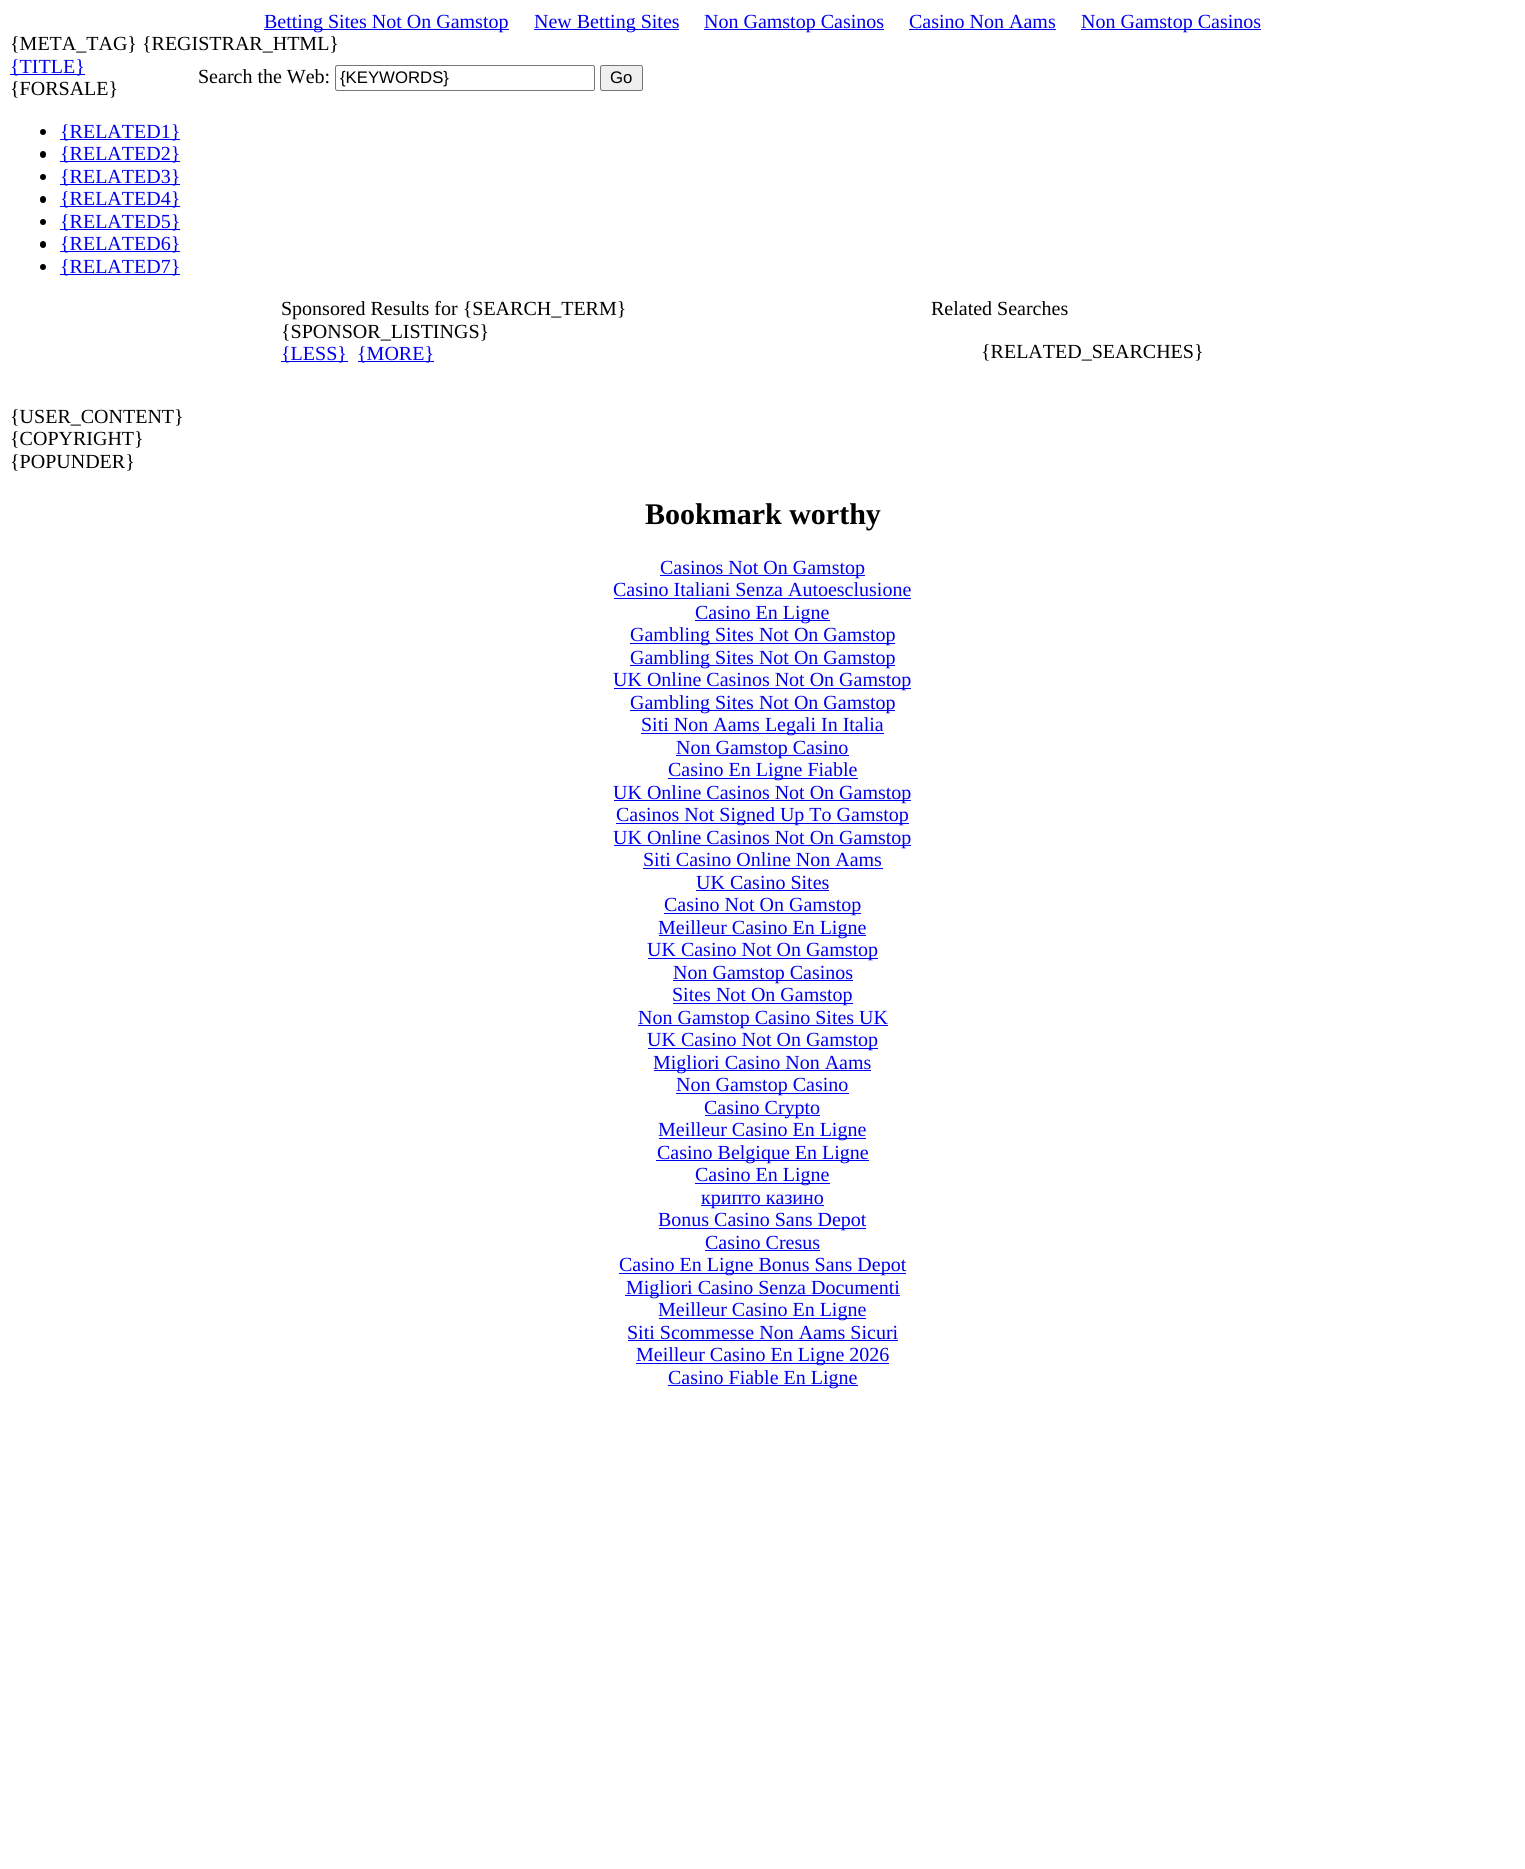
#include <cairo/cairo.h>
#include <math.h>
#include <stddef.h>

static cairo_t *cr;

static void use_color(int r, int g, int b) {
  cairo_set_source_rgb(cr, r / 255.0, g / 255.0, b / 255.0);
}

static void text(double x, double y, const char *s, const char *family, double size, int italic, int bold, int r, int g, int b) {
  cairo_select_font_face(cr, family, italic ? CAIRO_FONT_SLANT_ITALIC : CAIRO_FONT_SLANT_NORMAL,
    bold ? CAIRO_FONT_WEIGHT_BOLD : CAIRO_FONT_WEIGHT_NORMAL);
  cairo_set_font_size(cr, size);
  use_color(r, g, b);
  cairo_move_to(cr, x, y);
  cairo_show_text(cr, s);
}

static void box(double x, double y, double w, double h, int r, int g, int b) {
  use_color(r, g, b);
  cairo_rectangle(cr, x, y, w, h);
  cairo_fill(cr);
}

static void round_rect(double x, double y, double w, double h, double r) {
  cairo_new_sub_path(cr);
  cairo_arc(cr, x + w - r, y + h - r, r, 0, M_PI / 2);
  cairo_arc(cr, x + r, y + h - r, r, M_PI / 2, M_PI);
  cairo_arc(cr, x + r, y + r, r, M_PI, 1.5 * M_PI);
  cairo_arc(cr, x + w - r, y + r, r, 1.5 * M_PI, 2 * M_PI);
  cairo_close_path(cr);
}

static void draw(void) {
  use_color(255, 255, 255);
  cairo_paint(cr);
  box(264, 29, 245, 1, 0, 0, 238);
  box(534, 29, 145, 1, 0, 0, 238);
  box(704, 29, 180, 1, 0, 0, 238);
  box(909, 29, 147, 1, 0, 0, 238);
  box(1081, 29, 180, 1, 0, 0, 238);
  box(10, 74, 75, 1, 0, 0, 238);
  round_rect(335.5, 65.5, 259, 25, 2);
  use_color(118, 118, 118);
  cairo_set_line_width(cr, 1);
  cairo_stroke(cr);
  use_color(239, 239, 239);
  round_rect(600.5, 65.5, 42, 25, 2);
  cairo_fill_preserve(cr);
  use_color(118, 118, 118);
  cairo_stroke(cr);
  use_color(0, 0, 0);
  cairo_arc(cr, 43, 132, 3, 0, 2 * M_PI);
  cairo_fill(cr);
  box(60, 139, 120, 1, 0, 0, 238);
  use_color(0, 0, 0);
  round_rect(40, 151, 6, 7, 3);
  cairo_fill(cr);
  box(60, 161, 120, 1, 0, 0, 238);
  use_color(0, 0, 0);
  cairo_arc(cr, 43, 177, 3, 0, 2 * M_PI);
  cairo_fill(cr);
  box(60, 184, 120, 1, 0, 0, 238);
  use_color(0, 0, 0);
  round_rect(40, 196, 6, 7, 3);
  cairo_fill(cr);
  box(60, 206, 120, 1, 0, 0, 238);
  use_color(0, 0, 0);
  cairo_arc(cr, 43, 222, 3, 0, 2 * M_PI);
  cairo_fill(cr);
  box(60, 229, 120, 1, 0, 0, 238);
  use_color(0, 0, 0);
  round_rect(40, 241, 6, 7, 3);
  cairo_fill(cr);
  box(60, 251, 120, 1, 0, 0, 238);
  use_color(0, 0, 0);
  cairo_arc(cr, 43, 267, 3, 0, 2 * M_PI);
  cairo_fill(cr);
  box(60, 274, 120, 1, 0, 0, 238);
  box(281, 361, 67, 1, 0, 0, 238);
  box(358, 361, 76, 1, 0, 0, 238);
  box(660, 575, 205, 1, 0, 0, 238);
  box(614, 598, 297, 1, 0, 0, 238);
  box(695, 620, 135, 1, 0, 0, 238);
  box(630, 643, 265, 1, 0, 0, 238);
  box(630, 665, 265, 1, 0, 0, 238);
  box(614, 688, 297, 1, 0, 0, 238);
  box(630, 710, 265, 1, 0, 0, 238);
  box(641, 733, 243, 1, 0, 0, 238);
  box(676, 755, 173, 1, 0, 0, 238);
  box(668, 778, 190, 1, 0, 0, 238);
  box(614, 800, 297, 1, 0, 0, 238);
  box(616, 823, 293, 1, 0, 0, 238);
  box(614, 845, 297, 1, 0, 0, 238);
  box(643, 868, 240, 1, 0, 0, 238);
  box(696, 890, 133, 1, 0, 0, 238);
  box(664, 913, 197, 1, 0, 0, 238);
  box(659, 935, 207, 1, 0, 0, 238);
  box(648, 958, 230, 1, 0, 0, 238);
  box(673, 980, 180, 1, 0, 0, 238);
  box(673, 1003, 180, 1, 0, 0, 238);
  box(638, 1025, 250, 1, 0, 0, 238);
  box(648, 1048, 230, 1, 0, 0, 238);
  box(654, 1070, 217, 1, 0, 0, 238);
  box(676, 1093, 173, 1, 0, 0, 238);
  box(705, 1115, 115, 1, 0, 0, 238);
  box(659, 1138, 207, 1, 0, 0, 238);
  box(656, 1160, 213, 1, 0, 0, 238);
  box(695, 1183, 135, 1, 0, 0, 238);
  box(701, 1205, 123, 1, 0, 0, 238);
  box(659, 1228, 207, 1, 0, 0, 238);
  box(705, 1250, 115, 1, 0, 0, 238);
  box(619, 1273, 287, 1, 0, 0, 238);
  box(625, 1295, 275, 1, 0, 0, 238);
  box(659, 1318, 207, 1, 0, 0, 238);
  box(628, 1340, 270, 1, 0, 0, 238);
  box(636, 1363, 253, 1, 0, 0, 238);
  box(668, 1385, 190, 1, 0, 0, 238);
  text(264, 28, "Betting Sites Not On Gamstop", "Liberation Serif", 20, 0, 0, 0, 0, 238);
  text(534, 28, "New Betting Sites", "Liberation Serif", 20, 0, 0, 0, 0, 238);
  text(704, 28, "Non Gamstop Casinos", "Liberation Serif", 20, 0, 0, 0, 0, 238);
  text(909, 28, "Casino Non Aams", "Liberation Serif", 20, 0, 0, 0, 0, 238);
  text(1081, 28, "Non Gamstop Casinos", "Liberation Serif", 20, 0, 0, 0, 0, 238);
  text(10, 50, "{META_TAG} {REGISTRAR_HTML}", "Liberation Serif", 20, 0, 0, 0, 0, 0);
  text(10, 73, "{TITLE}", "Liberation Serif", 20, 0, 0, 0, 0, 238);
  text(10, 95, "{FORSALE}", "Liberation Serif", 20, 0, 0, 0, 0, 0);
  text(198, 83, "Search the Web:", "Liberation Serif", 20, 0, 0, 0, 0, 0);
  text(340, 83, "{KEYWORDS}", "Liberation Sans", 16.75, 0, 0, 0, 0, 0);
  text(610, 83, "Go", "Liberation Sans", 16.75, 0, 0, 0, 0, 0);
  text(60, 138, "{RELATED1}", "Liberation Serif", 20, 0, 0, 0, 0, 238);
  text(60, 160, "{RELATED2}", "Liberation Serif", 20, 0, 0, 0, 0, 238);
  text(60, 183, "{RELATED3}", "Liberation Serif", 20, 0, 0, 0, 0, 238);
  text(60, 205, "{RELATED4}", "Liberation Serif", 20, 0, 0, 0, 0, 238);
  text(60, 228, "{RELATED5}", "Liberation Serif", 20, 0, 0, 0, 0, 238);
  text(60, 250, "{RELATED6}", "Liberation Serif", 20, 0, 0, 0, 0, 238);
  text(60, 273, "{RELATED7}", "Liberation Serif", 20, 0, 0, 0, 0, 238);
  text(281, 315, "Sponsored Results for {SEARCH_TERM}", "Liberation Serif", 20, 0, 0, 0, 0, 0);
  text(281, 338, "{SPONSOR_LISTINGS}", "Liberation Serif", 20, 0, 0, 0, 0, 0);
  text(281, 360, "{LESS}", "Liberation Serif", 20, 0, 0, 0, 0, 238);
  text(357, 360, "{MORE}", "Liberation Serif", 20, 0, 0, 0, 0, 238);
  text(931, 315, "Related Searches", "Liberation Serif", 20, 0, 0, 0, 0, 0);
  text(981, 358, "{RELATED_SEARCHES}", "Liberation Serif", 20, 0, 0, 0, 0, 0);
  text(10, 423, "{USER_CONTENT}", "Liberation Serif", 20, 0, 0, 0, 0, 0);
  text(10, 445, "{COPYRIGHT}", "Liberation Serif", 20, 0, 0, 0, 0, 0);
  text(10, 468, "{POPUNDER}", "Liberation Serif", 20, 0, 0, 0, 0, 0);
  text(645, 524, "Bookmark worthy", "Liberation Serif", 30, 0, 1, 0, 0, 0);
  text(660, 574, "Casinos Not On Gamstop", "Liberation Serif", 20, 0, 0, 0, 0, 238);
  text(613, 596, "Casino Italiani Senza Autoesclusione", "Liberation Serif", 20, 0, 0, 0, 0, 238);
  text(695, 619, "Casino En Ligne", "Liberation Serif", 20, 0, 0, 0, 0, 238);
  text(630, 641, "Gambling Sites Not On Gamstop", "Liberation Serif", 20, 0, 0, 0, 0, 238);
  text(630, 664, "Gambling Sites Not On Gamstop", "Liberation Serif", 20, 0, 0, 0, 0, 238);
  text(613, 686, "UK Online Casinos Not On Gamstop", "Liberation Serif", 20, 0, 0, 0, 0, 238);
  text(630, 709, "Gambling Sites Not On Gamstop", "Liberation Serif", 20, 0, 0, 0, 0, 238);
  text(641, 731, "Siti Non Aams Legali In Italia", "Liberation Serif", 20, 0, 0, 0, 0, 238);
  text(676, 754, "Non Gamstop Casino", "Liberation Serif", 20, 0, 0, 0, 0, 238);
  text(668, 776, "Casino En Ligne Fiable", "Liberation Serif", 20, 0, 0, 0, 0, 238);
  text(613, 799, "UK Online Casinos Not On Gamstop", "Liberation Serif", 20, 0, 0, 0, 0, 238);
  text(616, 821, "Casinos Not Signed Up To Gamstop", "Liberation Serif", 20, 0, 0, 0, 0, 238);
  text(613, 844, "UK Online Casinos Not On Gamstop", "Liberation Serif", 20, 0, 0, 0, 0, 238);
  text(643, 866, "Siti Casino Online Non Aams", "Liberation Serif", 20, 0, 0, 0, 0, 238);
  text(696, 889, "UK Casino Sites", "Liberation Serif", 20, 0, 0, 0, 0, 238);
  text(664, 911, "Casino Not On Gamstop", "Liberation Serif", 20, 0, 0, 0, 0, 238);
  text(658, 934, "Meilleur Casino En Ligne", "Liberation Serif", 20, 0, 0, 0, 0, 238);
  text(647, 956, "UK Casino Not On Gamstop", "Liberation Serif", 20, 0, 0, 0, 0, 238);
  text(673, 979, "Non Gamstop Casinos", "Liberation Serif", 20, 0, 0, 0, 0, 238);
  text(672, 1001, "Sites Not On Gamstop", "Liberation Serif", 20, 0, 0, 0, 0, 238);
  text(638, 1024, "Non Gamstop Casino Sites UK", "Liberation Serif", 20, 0, 0, 0, 0, 238);
  text(647, 1046, "UK Casino Not On Gamstop", "Liberation Serif", 20, 0, 0, 0, 0, 238);
  text(653, 1069, "Migliori Casino Non Aams", "Liberation Serif", 20, 0, 0, 0, 0, 238);
  text(676, 1091, "Non Gamstop Casino", "Liberation Serif", 20, 0, 0, 0, 0, 238);
  text(704, 1114, "Casino Crypto", "Liberation Serif", 20, 0, 0, 0, 0, 238);
  text(658, 1136, "Meilleur Casino En Ligne", "Liberation Serif", 20, 0, 0, 0, 0, 238);
  text(657, 1159, "Casino Belgique En Ligne", "Liberation Serif", 20, 0, 0, 0, 0, 238);
  text(695, 1181, "Casino En Ligne", "Liberation Serif", 20, 0, 0, 0, 0, 238);
  text(701, 1204, "крипто казино", "Liberation Serif", 20, 0, 0, 0, 0, 238);
  text(658, 1226, "Bonus Casino Sans Depot", "Liberation Serif", 20, 0, 0, 0, 0, 238);
  text(705, 1249, "Casino Cresus", "Liberation Serif", 20, 0, 0, 0, 0, 238);
  text(619, 1271, "Casino En Ligne Bonus Sans Depot", "Liberation Serif", 20, 0, 0, 0, 0, 238);
  text(626, 1294, "Migliori Casino Senza Documenti", "Liberation Serif", 20, 0, 0, 0, 0, 238);
  text(658, 1316, "Meilleur Casino En Ligne", "Liberation Serif", 20, 0, 0, 0, 0, 238);
  text(627, 1339, "Siti Scommesse Non Aams Sicuri", "Liberation Serif", 20, 0, 0, 0, 0, 238);
  text(636, 1361, "Meilleur Casino En Ligne 2026", "Liberation Serif", 20, 0, 0, 0, 0, 238);
  text(668, 1384, "Casino Fiable En Ligne", "Liberation Serif", 20, 0, 0, 0, 0, 238);
}

int main(void) {
  cairo_surface_t *surface = cairo_image_surface_create(CAIRO_FORMAT_RGB24, 1525, 1869);
  cr = cairo_create(surface);
  cairo_font_options_t *options = cairo_font_options_create();
  cairo_font_options_set_hint_metrics(options, CAIRO_HINT_METRICS_OFF);
  cairo_font_options_set_hint_style(options, CAIRO_HINT_STYLE_NONE);
  cairo_set_font_options(cr, options);
  cairo_set_miter_limit(cr, 4);
  draw();
  cairo_surface_write_to_png(surface, "out.png");
  cairo_font_options_destroy(options);
  cairo_destroy(cr);
  cairo_surface_destroy(surface);
  return 0;
}
